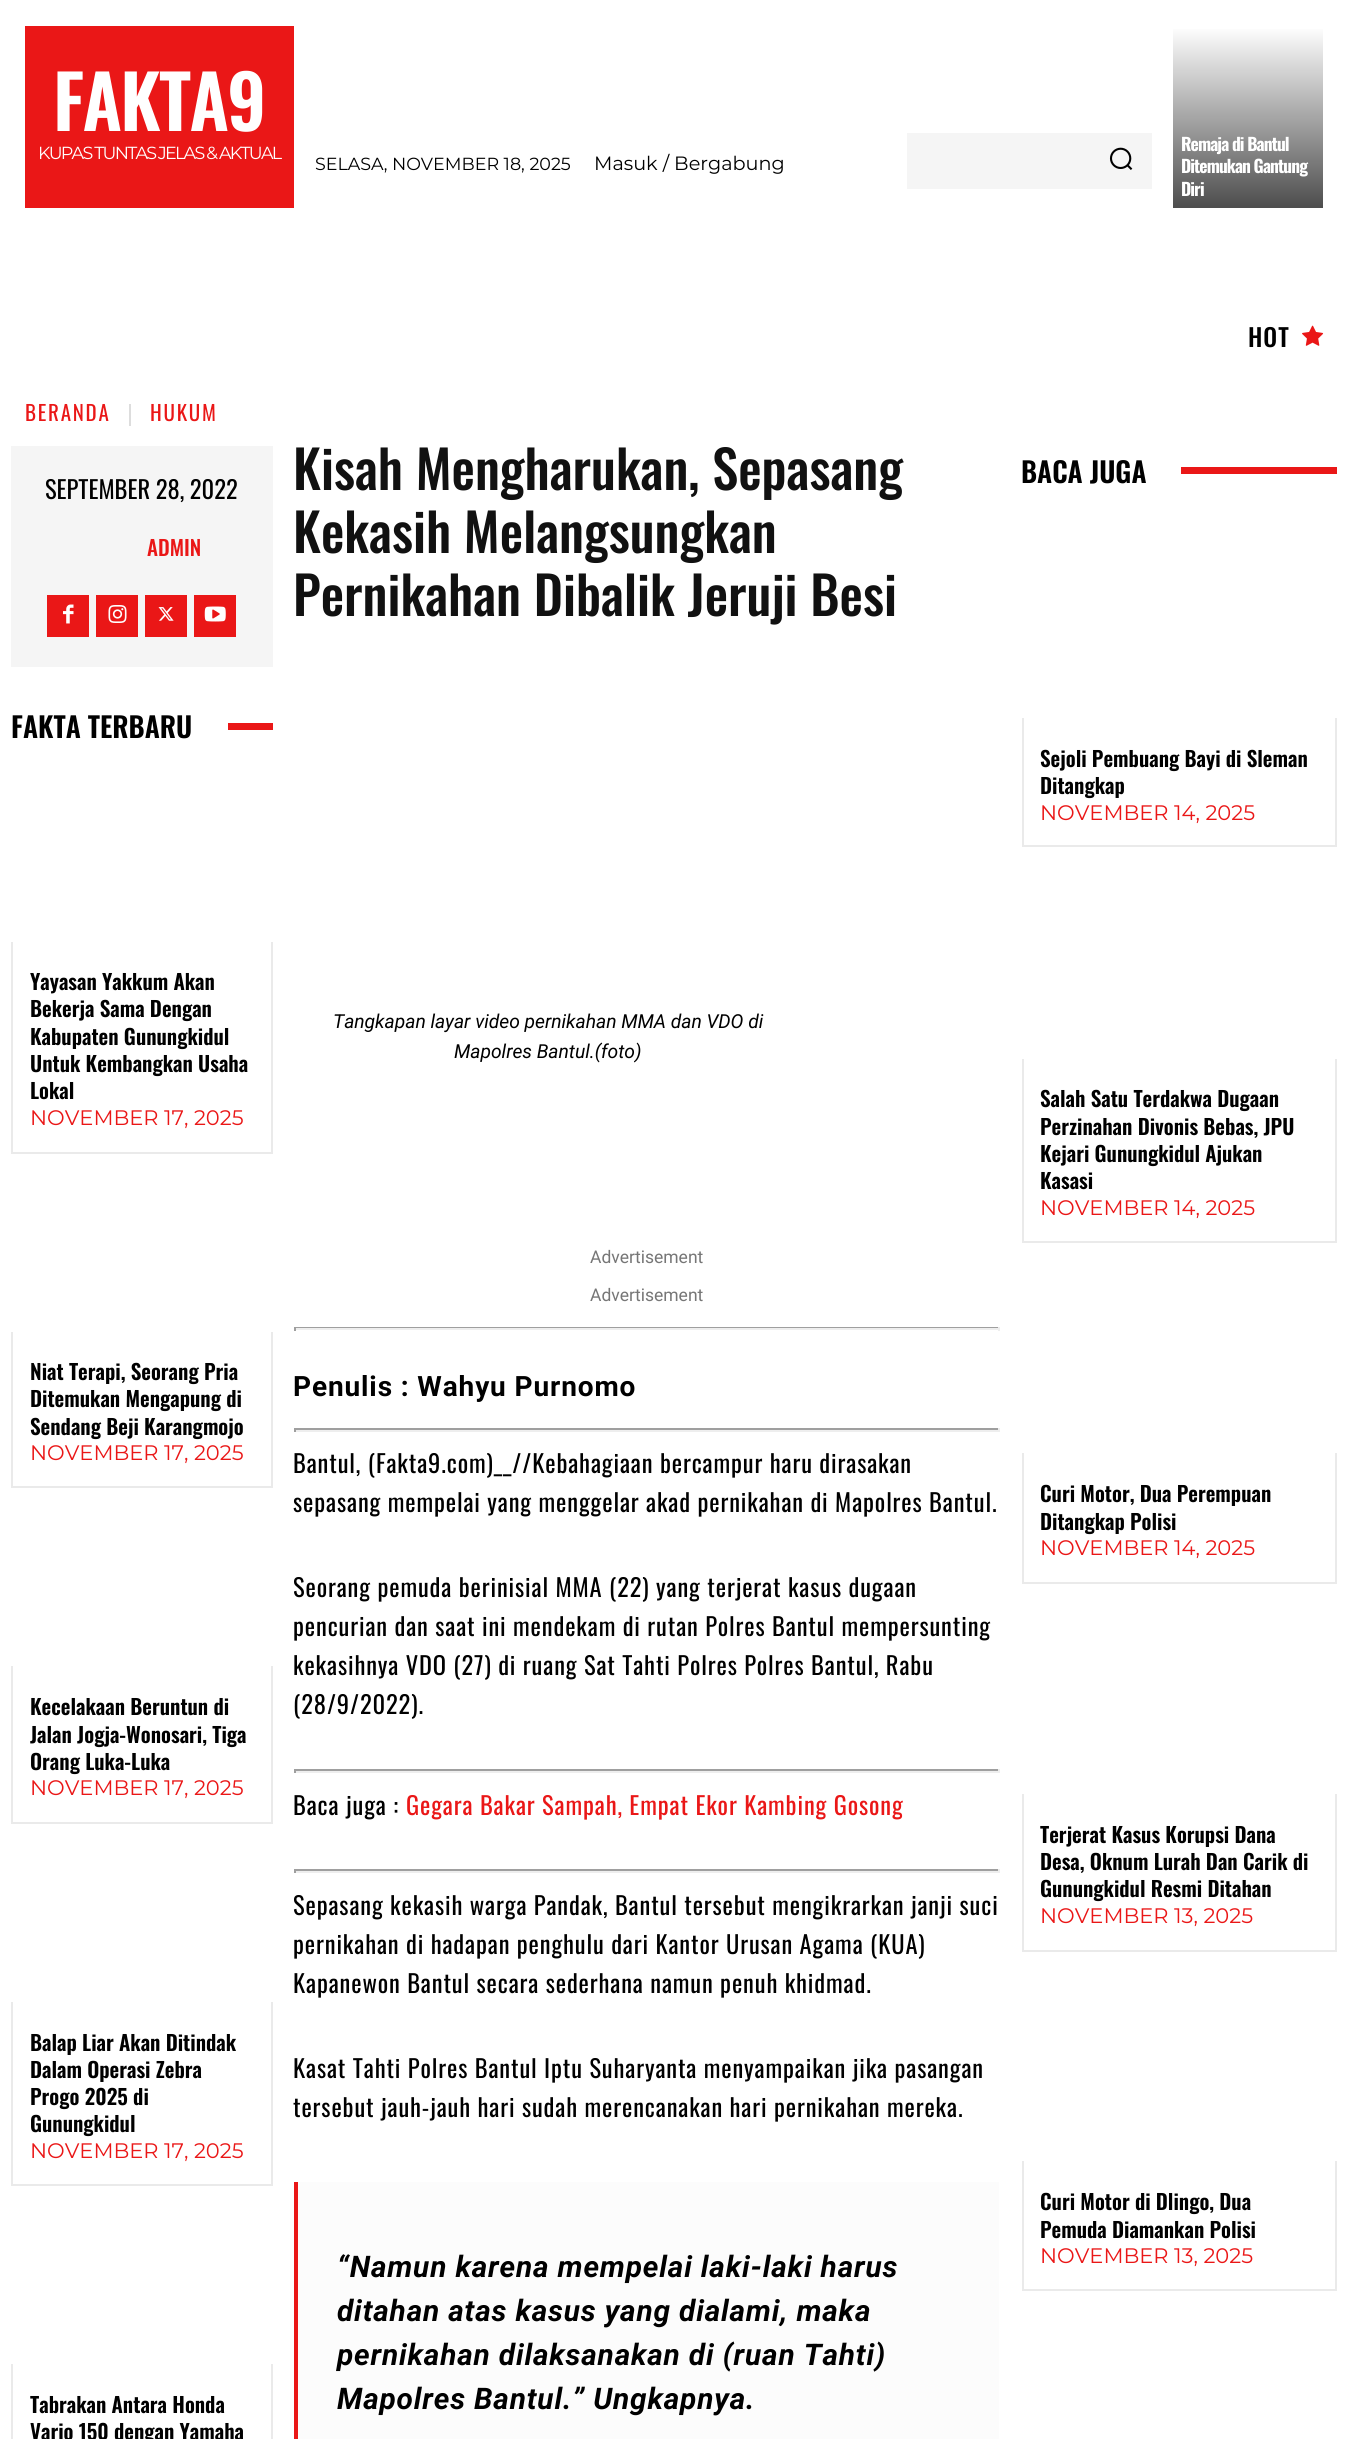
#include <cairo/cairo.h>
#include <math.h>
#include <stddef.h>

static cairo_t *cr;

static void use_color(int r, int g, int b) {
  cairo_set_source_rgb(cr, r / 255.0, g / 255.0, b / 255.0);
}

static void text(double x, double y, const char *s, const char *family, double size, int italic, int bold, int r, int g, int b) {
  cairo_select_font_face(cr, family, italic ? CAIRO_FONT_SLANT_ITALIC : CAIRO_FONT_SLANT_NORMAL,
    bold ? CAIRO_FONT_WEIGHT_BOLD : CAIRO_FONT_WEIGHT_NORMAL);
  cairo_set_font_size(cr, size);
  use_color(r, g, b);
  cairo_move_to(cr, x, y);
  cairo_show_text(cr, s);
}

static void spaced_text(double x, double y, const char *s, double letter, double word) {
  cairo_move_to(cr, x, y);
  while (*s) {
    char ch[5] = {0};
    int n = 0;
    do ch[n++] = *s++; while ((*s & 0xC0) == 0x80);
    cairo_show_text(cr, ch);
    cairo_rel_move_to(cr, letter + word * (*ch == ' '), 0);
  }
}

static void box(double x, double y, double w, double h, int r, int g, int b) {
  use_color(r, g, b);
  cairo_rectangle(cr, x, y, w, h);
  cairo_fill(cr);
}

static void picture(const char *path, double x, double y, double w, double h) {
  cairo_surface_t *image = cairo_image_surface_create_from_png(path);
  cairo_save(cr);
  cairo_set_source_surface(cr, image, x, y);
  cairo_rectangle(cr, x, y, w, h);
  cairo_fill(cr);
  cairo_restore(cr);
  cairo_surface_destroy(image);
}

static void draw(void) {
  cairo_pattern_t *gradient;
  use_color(255, 255, 255);
  cairo_paint(cr);
  box(25, 26, 269, 182, 234, 23, 23);
  box(907, 133, 245, 56, 245, 245, 245);
  picture("img_01.png", 1109, 147, 24, 23);
  gradient = cairo_pattern_create_linear(1248, 208, 1248, 26);
  cairo_pattern_add_color_stop_rgba(gradient, 0, 0.302, 0.302, 0.302, 1);
  cairo_pattern_add_color_stop_rgba(gradient, 1, 1, 1, 1, 1);
  cairo_set_source(cr, gradient);
  cairo_pattern_destroy(gradient);
  cairo_rectangle(cr, 1173, 29, 150, 179);
  cairo_fill(cr);
  picture("img_02.png", 1302, 325, 22, 21);
  box(129, 404, 2, 22, 221, 221, 221);
  box(11, 446, 262, 221, 245, 245, 245);
  box(47, 595, 42, 42, 234, 23, 23);
  picture("img_03.png", 63, 604, 11, 20);
  box(96, 595, 42, 42, 234, 23, 23);
  picture("img_04.png", 108, 605, 19, 18);
  box(145, 595, 42, 42, 234, 23, 23);
  picture("img_05.png", 158, 607, 16, 14);
  box(194, 595, 42, 42, 234, 23, 23);
  picture("img_06.png", 204, 606, 22, 16);
  box(228, 723, 45, 7, 234, 23, 23);
  box(271, 942, 2, 211, 234, 234, 234);
  box(11, 1152, 262, 2, 234, 234, 234);
  box(11, 942, 2, 211, 234, 234, 234);
  box(271, 1332, 2, 156, 234, 234, 234);
  box(11, 1486, 262, 2, 234, 234, 234);
  box(11, 1332, 2, 156, 234, 234, 234);
  box(271, 1666, 2, 158, 234, 234, 234);
  box(11, 1822, 262, 2, 234, 234, 234);
  box(11, 1666, 2, 158, 234, 234, 234);
  box(271, 2002, 2, 184, 234, 234, 234);
  box(11, 2184, 262, 2, 234, 234, 234);
  box(11, 2002, 2, 184, 234, 234, 234);
  box(271, 2364, 2, 75, 234, 234, 234);
  box(11, 2364, 2, 75, 234, 234, 234);
  box(294, 1327, 705, 1, 159, 159, 159);
  box(998, 1327, 2, 4, 238, 238, 238);
  box(294, 1328, 705, 2, 238, 238, 238);
  box(294, 1327, 2, 4, 159, 159, 159);
  box(294, 1428, 705, 2, 159, 159, 159);
  box(998, 1428, 2, 4, 238, 238, 238);
  box(294, 1430, 705, 2, 238, 238, 238);
  box(294, 1428, 2, 4, 159, 159, 159);
  box(294, 1769, 705, 2, 159, 159, 159);
  box(998, 1769, 2, 4, 238, 238, 238);
  box(294, 1771, 705, 2, 238, 238, 238);
  box(294, 1769, 2, 4, 159, 159, 159);
  box(294, 1869, 705, 2, 159, 159, 159);
  box(998, 1869, 2, 4, 238, 238, 238);
  box(294, 1871, 705, 2, 238, 238, 238);
  box(294, 1869, 2, 4, 159, 159, 159);
  box(298, 2182, 701, 257, 252, 252, 252);
  box(294, 2182, 4, 257, 234, 23, 23);
  box(1181, 467, 156, 7, 234, 23, 23);
  box(1335, 718, 2, 129, 234, 234, 234);
  box(1022, 845, 315, 2, 234, 234, 234);
  box(1022, 718, 2, 129, 234, 234, 234);
  box(1335, 1059, 2, 184, 234, 234, 234);
  box(1022, 1241, 315, 2, 234, 234, 234);
  box(1022, 1059, 2, 184, 234, 234, 234);
  box(1335, 1453, 2, 131, 234, 234, 234);
  box(1022, 1582, 315, 2, 234, 234, 234);
  box(1022, 1453, 2, 131, 234, 234, 234);
  box(1335, 1794, 2, 157, 234, 234, 234);
  box(1022, 1950, 315, 2, 234, 234, 234);
  box(1022, 1794, 2, 157, 234, 234, 234);
  box(1335, 2161, 2, 130, 234, 234, 234);
  box(1022, 2289, 315, 2, 234, 234, 234);
  box(1022, 2161, 2, 130, 234, 234, 234);
  cairo_select_font_face(cr, "Oswald SemiBold", CAIRO_FONT_SLANT_NORMAL, CAIRO_FONT_WEIGHT_NORMAL);
  cairo_set_font_size(cr, 73.5);
  use_color(255, 255, 255);
  spaced_text(53, 131, "FAKTA9", -1.75, 0);
  cairo_select_font_face(cr, "Montserrat", CAIRO_FONT_SLANT_NORMAL, CAIRO_FONT_WEIGHT_NORMAL);
  cairo_set_font_size(cr, 17.5);
  spaced_text(38, 159, "KUPAS TUNTAS JELAS & AKTUAL", -1.75, 0);
  text(315, 170, "SELASA, NOVEMBER 18, 2025", "Montserrat", 17.5, 0, 0, 0, 0, 0);
  text(594, 170, "Masuk / Bergabung", "Montserrat", 19.25, 0, 0, 0, 0, 0);
  cairo_select_font_face(cr, "Oswald", CAIRO_FONT_SLANT_NORMAL, CAIRO_FONT_WEIGHT_BOLD);
  cairo_set_font_size(cr, 17.5);
  use_color(255, 255, 255);
  spaced_text(1181, 151, "Remaja di Bantul", -0.9, 0);
  spaced_text(1181, 173, "Ditemukan Gantung", -0.9, 0);
  spaced_text(1181, 196, "Diri", -0.9, 0);
  cairo_select_font_face(cr, "Oswald Medium", CAIRO_FONT_SLANT_NORMAL, CAIRO_FONT_WEIGHT_NORMAL);
  cairo_set_font_size(cr, 24.5);
  use_color(0, 0, 0);
  spaced_text(1248, 347, "HOT", 1, 0);
  cairo_select_font_face(cr, "Oswald", CAIRO_FONT_SLANT_NORMAL, CAIRO_FONT_WEIGHT_NORMAL);
  cairo_set_font_size(cr, 21);
  use_color(234, 23, 23);
  spaced_text(25, 421, "BERANDA", 1.75, 0);
  spaced_text(150, 421, "HUKUM", 1.75, 0);
  text(45, 499, "SEPTEMBER 28, 2022", "Oswald", 24.5, 0, 0, 0, 0, 0);
  text(147, 556, "ADMIN", "Oswald Medium", 21, 0, 0, 234, 23, 23);
  text(11, 738, "FAKTA TERBARU", "Oswald SemiBold", 28, 0, 0, 0, 0, 0);
  text(30, 990, "Yayasan Yakkum Akan", "Oswald SemiBold", 21, 0, 0, 0, 0, 0);
  text(30, 1017, "Bekerja Sama Dengan", "Oswald SemiBold", 21, 0, 0, 0, 0, 0);
  text(30, 1045, "Kabupaten Gunungkidul", "Oswald SemiBold", 21, 0, 0, 0, 0, 0);
  text(30, 1072, "Untuk Kembangkan Usaha", "Oswald SemiBold", 21, 0, 0, 0, 0, 0);
  text(30, 1099, "Lokal", "Oswald SemiBold", 21, 0, 0, 0, 0, 0);
  text(30, 1125, "NOVEMBER 17, 2025", "Montserrat", 21, 0, 0, 234, 23, 23);
  text(30, 1380, "Niat Terapi, Seorang Pria", "Oswald SemiBold", 21, 0, 0, 0, 0, 0);
  text(30, 1407, "Ditemukan Mengapung di", "Oswald SemiBold", 21, 0, 0, 0, 0, 0);
  text(30, 1435, "Sendang Beji Karangmojo", "Oswald SemiBold", 21, 0, 0, 0, 0, 0);
  text(30, 1460, "NOVEMBER 17, 2025", "Montserrat", 21, 0, 0, 234, 23, 23);
  text(30, 1715, "Kecelakaan Beruntun di", "Oswald SemiBold", 21, 0, 0, 0, 0, 0);
  text(30, 1743, "Jalan Jogja-Wonosari, Tiga", "Oswald SemiBold", 21, 0, 0, 0, 0, 0);
  text(30, 1770, "Orang Luka-Luka", "Oswald SemiBold", 21, 0, 0, 0, 0, 0);
  text(30, 1795, "NOVEMBER 17, 2025", "Montserrat", 21, 0, 0, 234, 23, 23);
  text(30, 2051, "Balap Liar Akan Ditindak", "Oswald SemiBold", 21, 0, 0, 0, 0, 0);
  text(30, 2078, "Dalam Operasi Zebra", "Oswald SemiBold", 21, 0, 0, 0, 0, 0);
  text(30, 2105, "Progo 2025 di", "Oswald SemiBold", 21, 0, 0, 0, 0, 0);
  text(30, 2132, "Gunungkidul", "Oswald SemiBold", 21, 0, 0, 0, 0, 0);
  text(30, 2158, "NOVEMBER 17, 2025", "Montserrat", 21, 0, 0, 234, 23, 23);
  text(30, 2413, "Tabrakan Antara Honda", "Oswald SemiBold", 21, 0, 0, 0, 0, 0);
  text(30, 2440, "Vario 150 dengan Yamaha", "Oswald SemiBold", 21, 0, 0, 0, 0, 0);
  text(293, 490, "Kisah Mengharukan, Sepasang", "Oswald Medium", 52.5, 0, 0, 17, 17, 17);
  text(293, 553, "Kekasih Melangsungkan", "Oswald Medium", 52.5, 0, 0, 17, 17, 17);
  text(293, 616, "Pernikahan Dibalik Jeruji Besi", "Oswald Medium", 52.5, 0, 0, 17, 17, 17);
  text(333, 1028, "Tangkapan layar video pernikahan MMA dan VDO di", "Roboto", 19.25, 1, 0, 0, 0, 0);
  text(454, 1058, "Mapolres Bantul.(foto)", "Roboto", 19.25, 1, 0, 0, 0, 0);
  text(590, 1263, "Advertisement", "Roboto", 17.5, 0, 0, 118, 118, 118);
  text(590, 1301, "Advertisement", "Roboto", 17.5, 0, 0, 118, 118, 118);
  cairo_select_font_face(cr, "Roboto", CAIRO_FONT_SLANT_NORMAL, CAIRO_FONT_WEIGHT_BOLD);
  cairo_set_font_size(cr, 28);
  use_color(0, 0, 0);
  spaced_text(293, 1396, "Penulis : Wahyu Purnomo", 0.88, 0);
  cairo_select_font_face(cr, "Oswald", CAIRO_FONT_SLANT_NORMAL, CAIRO_FONT_WEIGHT_NORMAL);
  cairo_set_font_size(cr, 24.5);
  spaced_text(293, 1473, "Bantul, (Fakta9.com)__//Kebahagiaan bercampur haru dirasakan", 0.88, 0);
  spaced_text(293, 1512, "sepasang mempelai yang menggelar akad pernikahan di Mapolres Bantul.", 0.88, 0);
  spaced_text(293, 1597, "Seorang pemuda berinisial MMA (22) yang terjerat kasus dugaan", 0.88, 0);
  spaced_text(293, 1636, "pencurian dan saat ini mendekam di rutan Polres Bantul mempersunting", 0.88, 0);
  spaced_text(293, 1675, "kekasihnya VDO (27) di ruang Sat Tahti Polres Polres Bantul, Rabu", 0.88, 0);
  spaced_text(293, 1714, "(28/9/2022).", 0.88, 0);
  spaced_text(293, 1815, "Baca juga :", 0.88, 0);
  use_color(234, 23, 23);
  spaced_text(406, 1815, "Gegara Bakar Sampah, Empat Ekor Kambing Gosong", 0.88, 0);
  use_color(0, 0, 0);
  spaced_text(293, 1915, "Sepasang kekasih warga Pandak, Bantul tersebut mengikrarkan janji suci", 0.88, 0);
  spaced_text(293, 1954, "pernikahan di hadapan penghulu dari Kantor Urusan Agama (KUA)", 0.88, 0);
  spaced_text(293, 1993, "Kapanewon Bantul secara sederhana namun penuh khidmad.", 0.88, 0);
  spaced_text(293, 2078, "Kasat Tahti Polres Bantul Iptu Suharyanta menyampaikan jika pasangan", 0.88, 0);
  spaced_text(293, 2117, "tersebut jauh-jauh hari sudah merencanakan hari pernikahan mereka.", 0.88, 0);
  cairo_select_font_face(cr, "Roboto", CAIRO_FONT_SLANT_ITALIC, CAIRO_FONT_WEIGHT_BOLD);
  cairo_set_font_size(cr, 29.75);
  spaced_text(337, 2277, "“Namun karena mempelai laki-laki harus", 0.88, 0);
  spaced_text(337, 2321, "ditahan atas kasus yang dialami, maka", 0.88, 0);
  spaced_text(337, 2365, "pernikahan dilaksanakan di (ruan Tahti)", 0.88, 0);
  spaced_text(337, 2409, "Mapolres Bantul.” Ungkapnya.", 0.88, 0);
  text(1021, 483, "BACA JUGA", "Oswald SemiBold", 28, 0, 0, 0, 0, 0);
  text(1040, 767, "Sejoli Pembuang Bayi di Sleman", "Oswald SemiBold", 21, 0, 0, 0, 0, 0);
  text(1040, 794, "Ditangkap", "Oswald SemiBold", 21, 0, 0, 0, 0, 0);
  text(1040, 820, "NOVEMBER 14, 2025", "Montserrat", 21, 0, 0, 234, 23, 23);
  text(1040, 1107, "Salah Satu Terdakwa Dugaan", "Oswald SemiBold", 21, 0, 0, 0, 0, 0);
  text(1040, 1135, "Perzinahan Divonis Bebas, JPU", "Oswald SemiBold", 21, 0, 0, 0, 0, 0);
  text(1040, 1162, "Kejari Gunungkidul Ajukan", "Oswald SemiBold", 21, 0, 0, 0, 0, 0);
  text(1040, 1189, "Kasasi", "Oswald SemiBold", 21, 0, 0, 0, 0, 0);
  text(1040, 1215, "NOVEMBER 14, 2025", "Montserrat", 21, 0, 0, 234, 23, 23);
  text(1040, 1502, "Curi Motor, Dua Perempuan", "Oswald SemiBold", 21, 0, 0, 0, 0, 0);
  text(1040, 1530, "Ditangkap Polisi", "Oswald SemiBold", 21, 0, 0, 0, 0, 0);
  text(1040, 1555, "NOVEMBER 14, 2025", "Montserrat", 21, 0, 0, 234, 23, 23);
  text(1040, 1843, "Terjerat Kasus Korupsi Dana", "Oswald SemiBold", 21, 0, 0, 0, 0, 0);
  text(1040, 1870, "Desa, Oknum Lurah Dan Carik di", "Oswald SemiBold", 21, 0, 0, 0, 0, 0);
  text(1040, 1897, "Gunungkidul Resmi Ditahan", "Oswald SemiBold", 21, 0, 0, 0, 0, 0);
  text(1040, 1923, "NOVEMBER 13, 2025", "Montserrat", 21, 0, 0, 234, 23, 23);
  text(1040, 2210, "Curi Motor di Dlingo, Dua", "Oswald SemiBold", 21, 0, 0, 0, 0, 0);
  text(1040, 2238, "Pemuda Diamankan Polisi", "Oswald SemiBold", 21, 0, 0, 0, 0, 0);
  text(1040, 2263, "NOVEMBER 13, 2025", "Montserrat", 21, 0, 0, 234, 23, 23);
}

int main(void) {
  cairo_surface_t *surface = cairo_image_surface_create(CAIRO_FORMAT_RGB24, 1346, 2439);
  cr = cairo_create(surface);
  cairo_font_options_t *options = cairo_font_options_create();
  cairo_font_options_set_hint_metrics(options, CAIRO_HINT_METRICS_OFF);
  cairo_font_options_set_hint_style(options, CAIRO_HINT_STYLE_NONE);
  cairo_set_font_options(cr, options);
  cairo_set_miter_limit(cr, 4);
  draw();
  cairo_surface_write_to_png(surface, "out.png");
  cairo_font_options_destroy(options);
  cairo_destroy(cr);
  cairo_surface_destroy(surface);
  return 0;
}
